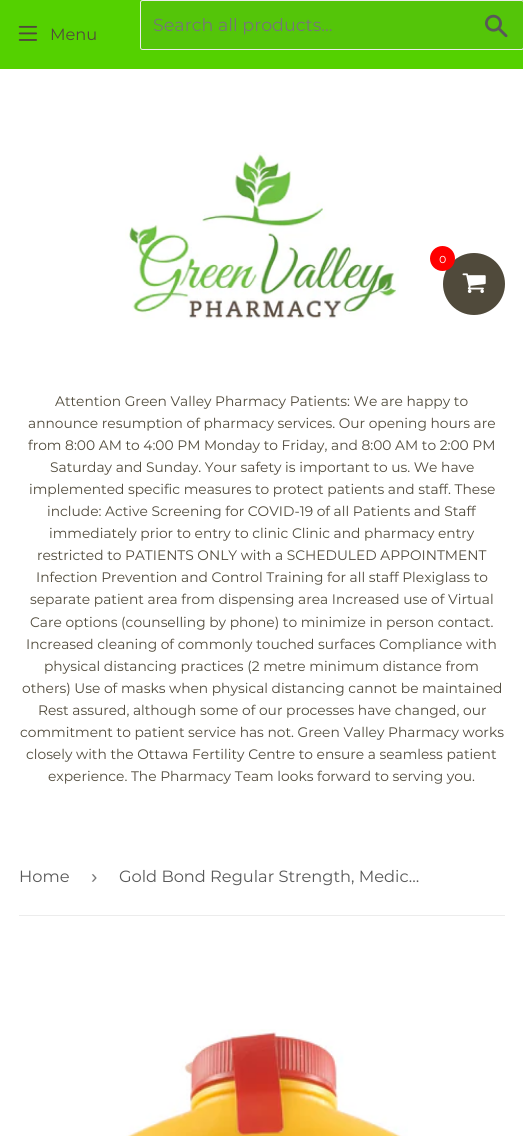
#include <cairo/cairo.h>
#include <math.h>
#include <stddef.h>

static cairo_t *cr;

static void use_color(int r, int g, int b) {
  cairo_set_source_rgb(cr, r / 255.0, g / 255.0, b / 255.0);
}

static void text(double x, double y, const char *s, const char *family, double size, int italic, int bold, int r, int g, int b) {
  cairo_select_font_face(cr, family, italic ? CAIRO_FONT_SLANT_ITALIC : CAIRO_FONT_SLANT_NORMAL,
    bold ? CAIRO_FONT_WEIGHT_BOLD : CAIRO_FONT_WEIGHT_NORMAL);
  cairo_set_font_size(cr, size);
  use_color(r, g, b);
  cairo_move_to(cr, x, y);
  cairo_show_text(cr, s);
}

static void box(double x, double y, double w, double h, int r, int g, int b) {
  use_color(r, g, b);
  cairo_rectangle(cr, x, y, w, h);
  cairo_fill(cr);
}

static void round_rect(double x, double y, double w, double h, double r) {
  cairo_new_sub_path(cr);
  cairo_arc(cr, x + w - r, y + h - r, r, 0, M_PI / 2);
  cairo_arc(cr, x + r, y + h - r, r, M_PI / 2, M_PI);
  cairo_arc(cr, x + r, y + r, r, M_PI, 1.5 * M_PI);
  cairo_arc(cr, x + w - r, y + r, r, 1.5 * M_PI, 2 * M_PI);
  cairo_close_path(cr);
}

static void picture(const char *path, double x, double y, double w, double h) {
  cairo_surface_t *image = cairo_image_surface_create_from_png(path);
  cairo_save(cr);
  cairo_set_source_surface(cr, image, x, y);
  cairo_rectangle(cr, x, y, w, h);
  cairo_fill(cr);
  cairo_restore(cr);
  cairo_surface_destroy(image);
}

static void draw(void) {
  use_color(255, 255, 255);
  cairo_paint(cr);
  box(0, 0, 523, 69, 84, 209, 0);
  picture("img_01.png", 18, 25, 20, 16);
  use_color(84, 197, 9);
  round_rect(140.5, 0.5, 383, 49, 2);
  cairo_fill_preserve(cr);
  use_color(236, 236, 236);
  cairo_set_line_width(cr, 1);
  cairo_stroke(cr);
  picture("img_02.png", 485, 14, 23, 24);
  picture("img_03.png", 125, 152, 274, 168);
  use_color(80, 74, 59);
  cairo_arc(cr, 474, 284, 31, 0, 2 * M_PI);
  cairo_fill(cr);
  use_color(255, 0, 0);
  cairo_arc(cr, 442.5, 258.5, 12.5, 0, 2 * M_PI);
  cairo_fill(cr);
  picture("img_04.png", 462, 273, 24, 20);
  box(19, 915, 486, 1, 236, 236, 236);
  picture("img_05.png", 126, 1029, 282, 107);
  text(50, 40, "Menu", "Montserrat", 16.25, 0, 0, 80, 74, 59);
  text(153, 31, "Search all products...", "Montserrat", 17.5, 0, 0, 118, 118, 118);
  text(55, 406, "Attention Green Valley Pharmacy Patients: We are happy to", "Montserrat", 13.8, 0, 0, 80, 74, 59);
  text(28, 428, "announce resumption of pharmacy services. Our opening hours are", "Montserrat", 13.8, 0, 0, 80, 74, 59);
  text(28, 450, "from 8:00 AM to 4:00 PM Monday to Friday, and 8:00 AM to 2:00 PM", "Montserrat", 13.8, 0, 0, 80, 74, 59);
  text(50, 472, "Saturday and Sunday. Your safety is important to us. We have", "Montserrat", 13.8, 0, 0, 80, 74, 59);
  text(29, 494, "implemented specific measures to protect patients and staff. These", "Montserrat", 13.8, 0, 0, 80, 74, 59);
  text(47, 516, "include: Active Screening for COVID-19 of all Patients and Staff", "Montserrat", 13.8, 0, 0, 80, 74, 59);
  text(49, 538, "immediately prior to entry to clinic Clinic and pharmacy entry", "Montserrat", 13.8, 0, 0, 80, 74, 59);
  text(37, 560, "restricted to PATIENTS ONLY with a SCHEDULED APPOINTMENT", "Montserrat", 13.8, 0, 0, 80, 74, 59);
  text(36, 582, "Infection Prevention and Control Training for all staff Plexiglass to", "Montserrat", 13.8, 0, 0, 80, 74, 59);
  text(30, 604, "separate patient area from dispensing area Increased use of Virtual", "Montserrat", 13.8, 0, 0, 80, 74, 59);
  text(30, 627, "Care options (counselling by phone) to minimize in person contact.", "Montserrat", 13.8, 0, 0, 80, 74, 59);
  text(26, 649, "Increased cleaning of commonly touched surfaces Compliance with", "Montserrat", 13.8, 0, 0, 80, 74, 59);
  text(44, 671, "physical distancing practices (2 metre minimum distance from", "Montserrat", 13.8, 0, 0, 80, 74, 59);
  text(22, 693, "others) Use of masks when physical distancing cannot be maintained", "Montserrat", 13.8, 0, 0, 80, 74, 59);
  text(38, 715, "Rest assured, although some of our processes have changed, our", "Montserrat", 13.8, 0, 0, 80, 74, 59);
  text(20, 737, "commitment to patient service has not. Green Valley Pharmacy works", "Montserrat", 13.8, 0, 0, 80, 74, 59);
  text(26, 759, "closely with the Ottawa Fertility Centre to ensure a seamless patient", "Montserrat", 13.8, 0, 0, 80, 74, 59);
  text(48, 781, "experience. The Pharmacy Team looks forward to serving you.", "Montserrat", 13.8, 0, 0, 80, 74, 59);
  text(439, 263, "0", "Raleway Thin", 12, 0, 0, 255, 255, 255);
  text(19, 882, "Home", "Montserrat", 16.25, 0, 0, 88, 88, 88);
  text(91, 883, "›", "Liberation Sans", 19, 0, 0, 118, 118, 118);
  text(119, 882, "Gold Bond Regular Strength, Medic…", "Montserrat", 16.25, 0, 0, 88, 88, 88);
}

int main(void) {
  cairo_surface_t *surface = cairo_image_surface_create(CAIRO_FORMAT_RGB24, 523, 1136);
  cr = cairo_create(surface);
  cairo_font_options_t *options = cairo_font_options_create();
  cairo_font_options_set_hint_metrics(options, CAIRO_HINT_METRICS_OFF);
  cairo_font_options_set_hint_style(options, CAIRO_HINT_STYLE_NONE);
  cairo_set_font_options(cr, options);
  cairo_set_miter_limit(cr, 4);
  draw();
  cairo_surface_write_to_png(surface, "out.png");
  cairo_font_options_destroy(options);
  cairo_destroy(cr);
  cairo_surface_destroy(surface);
  return 0;
}
